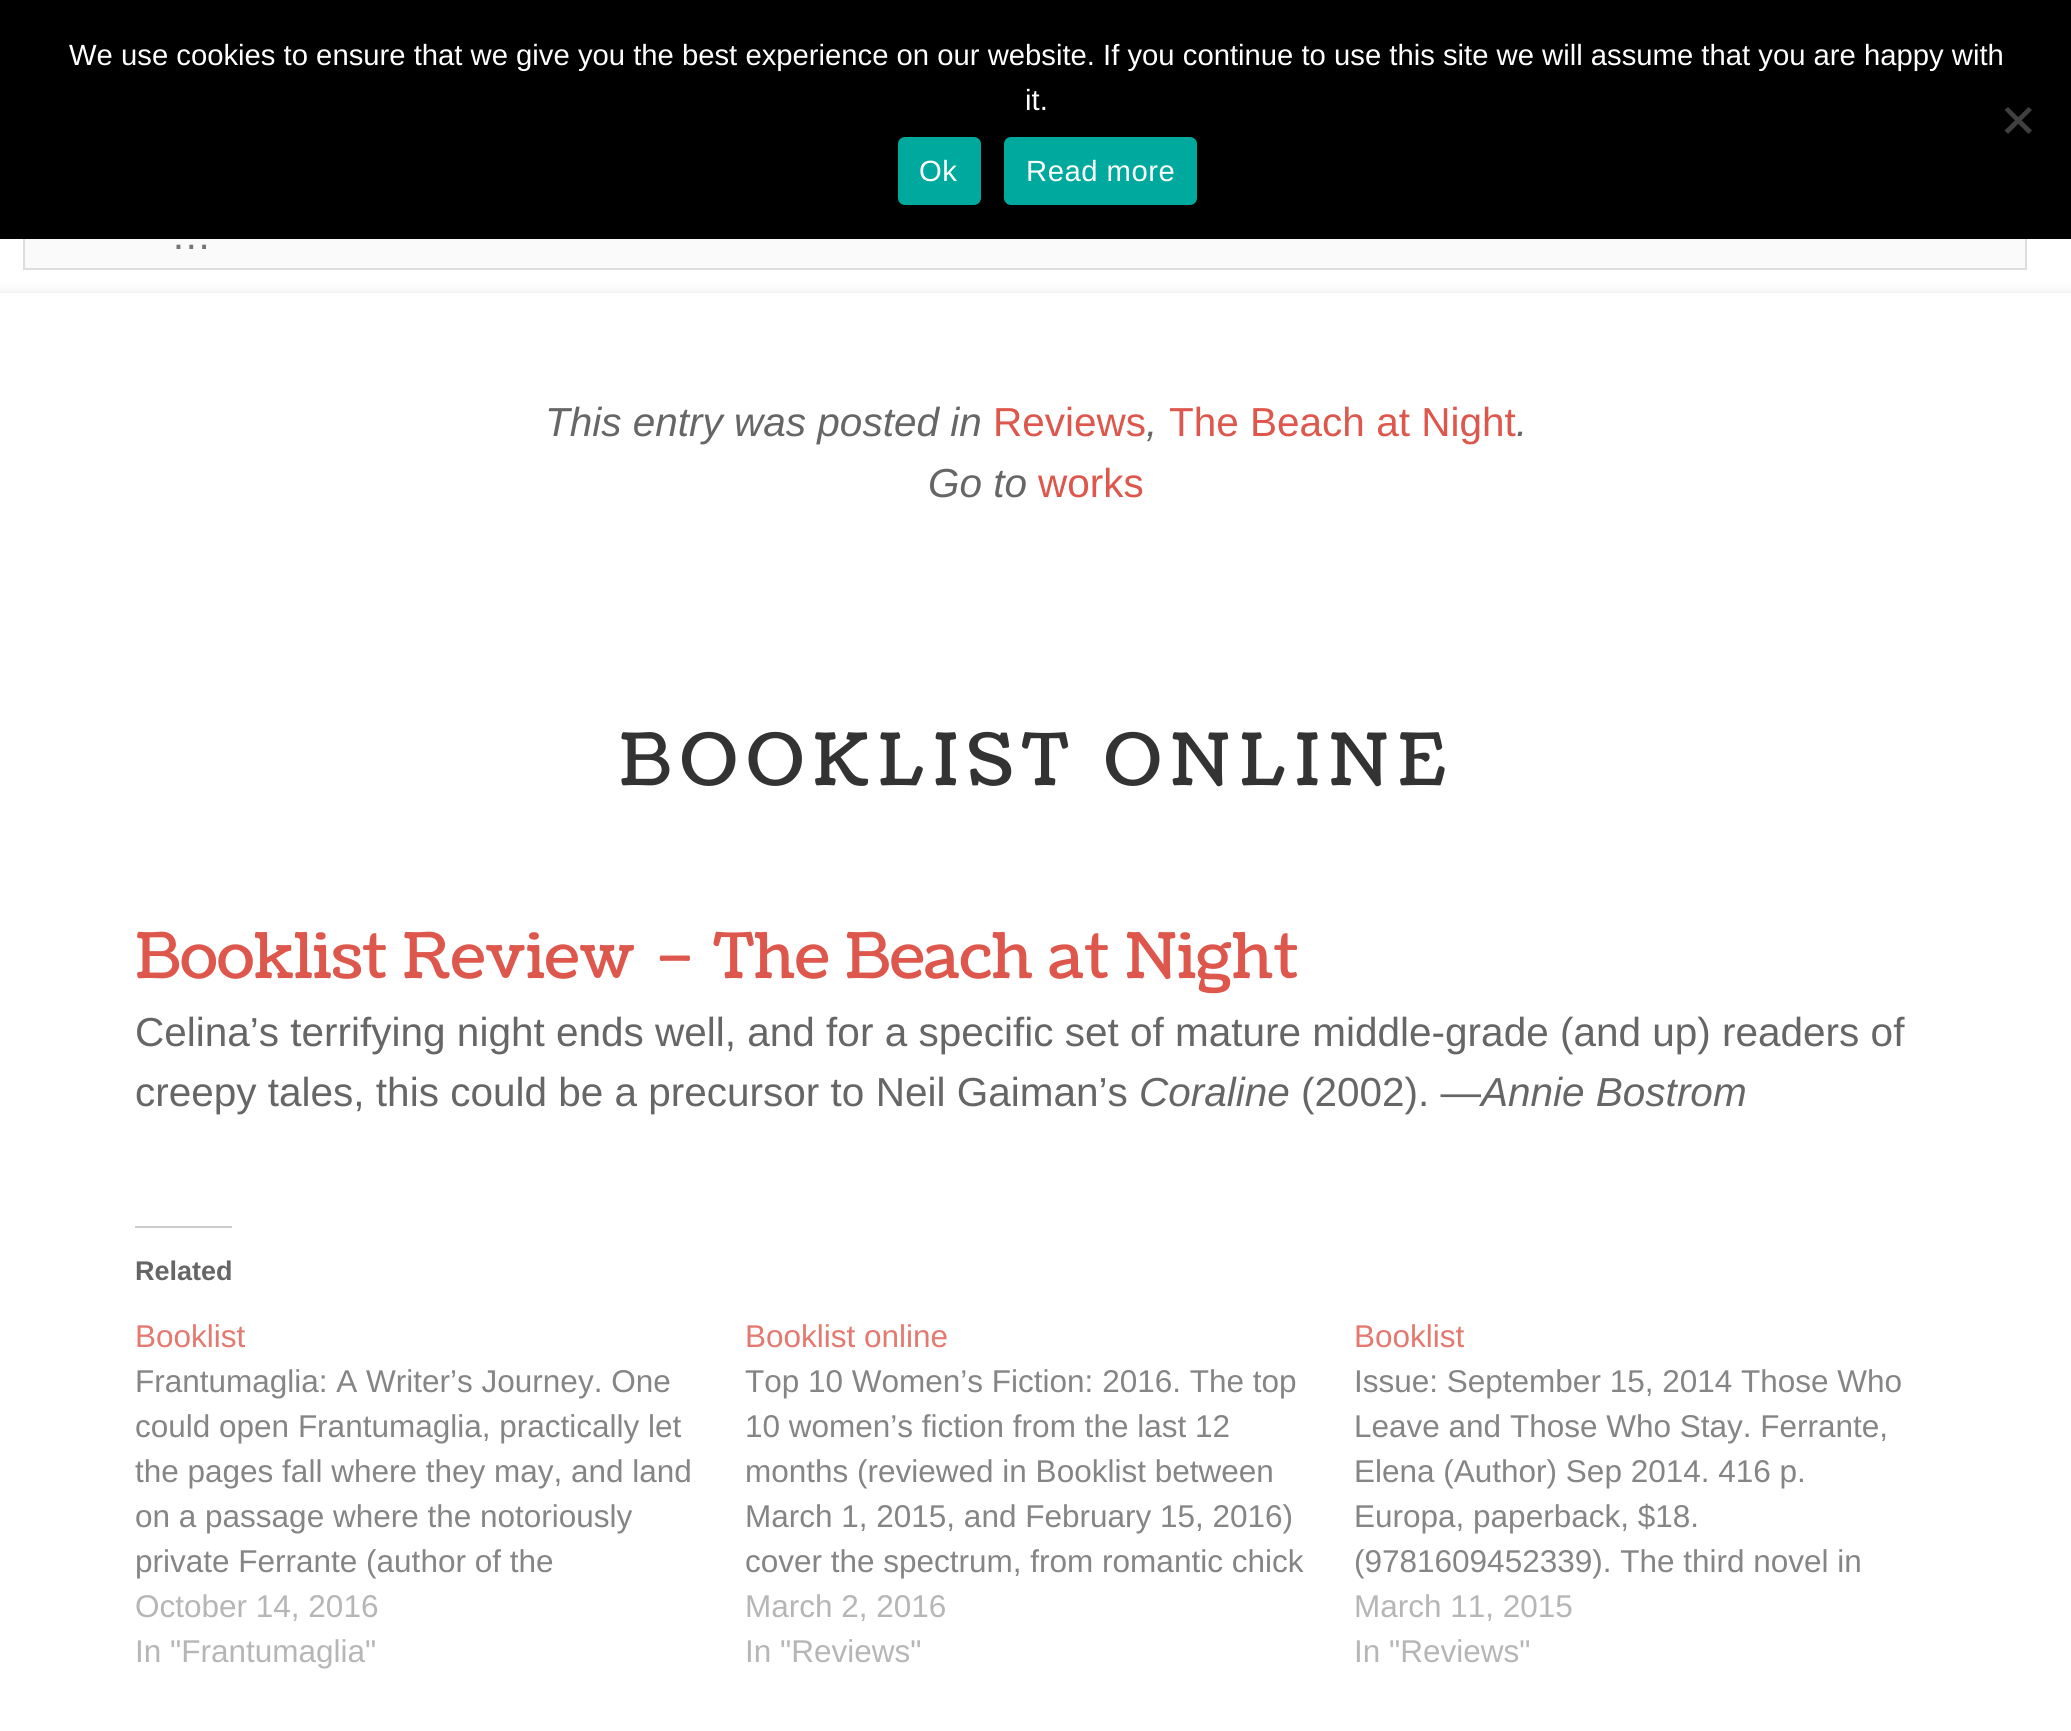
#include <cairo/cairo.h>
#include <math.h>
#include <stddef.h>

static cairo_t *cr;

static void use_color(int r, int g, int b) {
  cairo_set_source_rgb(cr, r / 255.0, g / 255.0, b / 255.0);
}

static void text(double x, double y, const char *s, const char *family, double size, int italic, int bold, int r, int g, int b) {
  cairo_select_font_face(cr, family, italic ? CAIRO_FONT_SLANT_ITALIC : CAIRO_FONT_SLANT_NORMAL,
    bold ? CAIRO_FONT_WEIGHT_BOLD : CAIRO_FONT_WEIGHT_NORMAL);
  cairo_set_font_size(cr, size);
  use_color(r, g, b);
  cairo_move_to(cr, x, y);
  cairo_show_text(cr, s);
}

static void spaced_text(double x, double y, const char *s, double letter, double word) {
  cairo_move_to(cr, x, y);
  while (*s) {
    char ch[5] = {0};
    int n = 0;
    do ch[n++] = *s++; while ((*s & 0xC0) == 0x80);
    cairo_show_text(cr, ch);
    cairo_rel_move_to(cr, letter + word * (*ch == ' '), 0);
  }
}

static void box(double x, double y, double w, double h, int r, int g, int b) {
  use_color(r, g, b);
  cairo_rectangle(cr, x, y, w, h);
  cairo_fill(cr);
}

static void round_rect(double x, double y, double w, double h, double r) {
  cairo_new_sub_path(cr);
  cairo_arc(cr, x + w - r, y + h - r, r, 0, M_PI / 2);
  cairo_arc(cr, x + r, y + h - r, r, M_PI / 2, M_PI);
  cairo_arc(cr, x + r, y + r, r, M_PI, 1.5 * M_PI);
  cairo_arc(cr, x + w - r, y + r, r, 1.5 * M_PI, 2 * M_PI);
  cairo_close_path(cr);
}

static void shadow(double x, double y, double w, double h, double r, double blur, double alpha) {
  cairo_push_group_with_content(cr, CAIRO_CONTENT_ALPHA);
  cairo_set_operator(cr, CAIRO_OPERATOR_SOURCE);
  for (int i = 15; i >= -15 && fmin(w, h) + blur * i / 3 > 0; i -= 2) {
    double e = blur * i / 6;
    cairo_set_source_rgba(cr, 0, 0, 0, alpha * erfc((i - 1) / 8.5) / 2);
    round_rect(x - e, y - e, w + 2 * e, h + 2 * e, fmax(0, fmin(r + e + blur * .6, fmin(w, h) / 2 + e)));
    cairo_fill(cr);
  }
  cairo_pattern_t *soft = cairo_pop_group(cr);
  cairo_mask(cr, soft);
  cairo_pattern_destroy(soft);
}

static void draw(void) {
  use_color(255, 255, 255);
  cairo_paint(cr);
  box(25, 239, 2000, 29, 250, 250, 250);
  cairo_rectangle(cr, 24, 206, 2002, 63);
  use_color(221, 221, 221);
  cairo_stroke(cr);
  box(0, 0, 2071, 239, 0, 0, 0);
  use_color(64, 64, 64);
  cairo_new_path(cr);
  cairo_move_to(cr, 2028.5, 107);
  cairo_line_to(cr, 2032, 110);
  cairo_line_to(cr, 2008, 134);
  cairo_line_to(cr, 2004.5, 130.5);
  cairo_close_path(cr);
  cairo_fill(cr);
  cairo_new_path(cr);
  cairo_move_to(cr, 2004.5, 110);
  cairo_line_to(cr, 2008, 107);
  cairo_line_to(cr, 2032, 130.5);
  cairo_line_to(cr, 2028.5, 134);
  cairo_close_path(cr);
  cairo_fill(cr);
  use_color(0, 169, 157);
  round_rect(898, 137, 83, 68, 7);
  cairo_fill(cr);
  round_rect(1004, 137, 193, 68, 7);
  cairo_fill(cr);
  use_color(100, 100, 100);
  shadow(0, 297, 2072, 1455, 0, 7, 0.3);
  box(0, 293, 2071, 1438, 255, 255, 255);
  box(135, 1226, 97, 2, 204, 204, 204);
  text(69, 65, "We use cookies to ensure that we give you the best experience on our website. If you continue to use this site we will assume that you are happy with", "Liberation Sans", 29.25, 0, 0, 255, 255, 255);
  text(1025, 110, "it.", "Liberation Sans", 29.25, 0, 0, 255, 255, 255);
  spaced_text(919, 181, "Ok", 0.5, 0);
  spaced_text(1026, 181, "Read more", 0.5, 0);
  text(545, 436, "This entry was posted in", "Liberation Sans", 40.5, 1, 0, 102, 102, 102);
  text(993, 436, "Reviews", "Liberation Sans", 40.5, 0, 0, 221, 87, 76);
  text(1146, 436, ",", "Liberation Sans", 40.5, 1, 0, 102, 102, 102);
  text(1169, 436, "The Beach at Night", "Liberation Sans", 40.5, 0, 0, 221, 87, 76);
  text(1516, 436, ".", "Liberation Sans", 40.5, 1, 0, 102, 102, 102);
  text(928, 497, "Go to", "Liberation Sans", 40.5, 1, 0, 102, 102, 102);
  text(1038, 497, "works", "Liberation Sans", 40.5, 0, 0, 221, 87, 76);
  cairo_select_font_face(cr, "Coustard", CAIRO_FONT_SLANT_NORMAL, CAIRO_FONT_WEIGHT_NORMAL);
  cairo_set_font_size(cr, 72);
  use_color(51, 51, 51);
  spaced_text(619, 785, "BOOKLIST ONLINE", 9, 0);
  text(135, 978, "Booklist Review – The Beach at Night", "Coustard", 63, 0, 0, 221, 87, 76);
  text(135, 1046, "Celina’s terrifying night ends well, and for a specific set of mature middle-grade (and up) readers of", "Liberation Sans", 40.5, 0, 0, 102, 102, 102);
  text(135, 1106, "creepy tales, this could be a precursor to Neil Gaiman’s", "Liberation Sans", 40.5, 0, 0, 102, 102, 102);
  text(1139, 1106, "Coraline", "Liberation Sans", 40.5, 1, 0, 102, 102, 102);
  text(1301, 1106, "(2002). —", "Liberation Sans", 40.5, 0, 0, 102, 102, 102);
  text(1481, 1106, "Annie Bostrom", "Liberation Sans", 40.5, 1, 0, 102, 102, 102);
  text(135, 1280, "Related", "Liberation Sans", 27, 0, 1, 102, 102, 102);
  text(135, 1347, "Booklist", "Liberation Sans", 31.5, 0, 0, 228, 121, 112);
  text(135, 1392, "Frantumaglia: A Writer’s Journey. One", "Liberation Sans", 31.5, 0, 0, 133, 133, 133);
  text(135, 1437, "could open Frantumaglia, practically let", "Liberation Sans", 31.5, 0, 0, 133, 133, 133);
  text(135, 1482, "the pages fall where they may, and land", "Liberation Sans", 31.5, 0, 0, 133, 133, 133);
  text(135, 1527, "on a passage where the notoriously", "Liberation Sans", 31.5, 0, 0, 133, 133, 133);
  text(135, 1572, "private Ferrante (author of the", "Liberation Sans", 31.5, 0, 0, 133, 133, 133);
  text(135, 1617, "October 14, 2016", "Liberation Sans", 31.5, 0, 0, 182, 182, 182);
  text(135, 1662, "In \"Frantumaglia\"", "Liberation Sans", 31.5, 0, 0, 182, 182, 182);
  text(745, 1347, "Booklist online", "Liberation Sans", 31.5, 0, 0, 228, 121, 112);
  text(745, 1392, "Top 10 Women’s Fiction: 2016. The top", "Liberation Sans", 31.5, 0, 0, 133, 133, 133);
  text(745, 1437, "10 women’s fiction from the last 12", "Liberation Sans", 31.5, 0, 0, 133, 133, 133);
  text(745, 1482, "months (reviewed in Booklist between", "Liberation Sans", 31.5, 0, 0, 133, 133, 133);
  text(745, 1527, "March 1, 2015, and February 15, 2016)", "Liberation Sans", 31.5, 0, 0, 133, 133, 133);
  text(745, 1572, "cover the spectrum, from romantic chick", "Liberation Sans", 31.5, 0, 0, 133, 133, 133);
  text(745, 1617, "March 2, 2016", "Liberation Sans", 31.5, 0, 0, 182, 182, 182);
  text(745, 1662, "In \"Reviews\"", "Liberation Sans", 31.5, 0, 0, 182, 182, 182);
  text(1354, 1347, "Booklist", "Liberation Sans", 31.5, 0, 0, 228, 121, 112);
  text(1354, 1392, "Issue: September 15, 2014 Those Who", "Liberation Sans", 31.5, 0, 0, 133, 133, 133);
  text(1354, 1437, "Leave and Those Who Stay. Ferrante,", "Liberation Sans", 31.5, 0, 0, 133, 133, 133);
  text(1354, 1482, "Elena (Author) Sep 2014. 416 p.", "Liberation Sans", 31.5, 0, 0, 133, 133, 133);
  text(1354, 1527, "Europa, paperback, $18.", "Liberation Sans", 31.5, 0, 0, 133, 133, 133);
  text(1354, 1572, "(9781609452339). The third novel in", "Liberation Sans", 31.5, 0, 0, 133, 133, 133);
  text(1354, 1617, "March 11, 2015", "Liberation Sans", 31.5, 0, 0, 182, 182, 182);
  text(1354, 1662, "In \"Reviews\"", "Liberation Sans", 31.5, 0, 0, 182, 182, 182);
  text(171, 249, "…", "Liberation Sans", 40.5, 0, 0, 117, 117, 117);
}

int main(void) {
  cairo_surface_t *surface = cairo_image_surface_create(CAIRO_FORMAT_RGB24, 2071, 1731);
  cr = cairo_create(surface);
  cairo_font_options_t *options = cairo_font_options_create();
  cairo_font_options_set_hint_metrics(options, CAIRO_HINT_METRICS_OFF);
  cairo_font_options_set_hint_style(options, CAIRO_HINT_STYLE_NONE);
  cairo_set_font_options(cr, options);
  cairo_set_miter_limit(cr, 4);
  draw();
  cairo_surface_write_to_png(surface, "out.png");
  cairo_font_options_destroy(options);
  cairo_destroy(cr);
  cairo_surface_destroy(surface);
  return 0;
}
